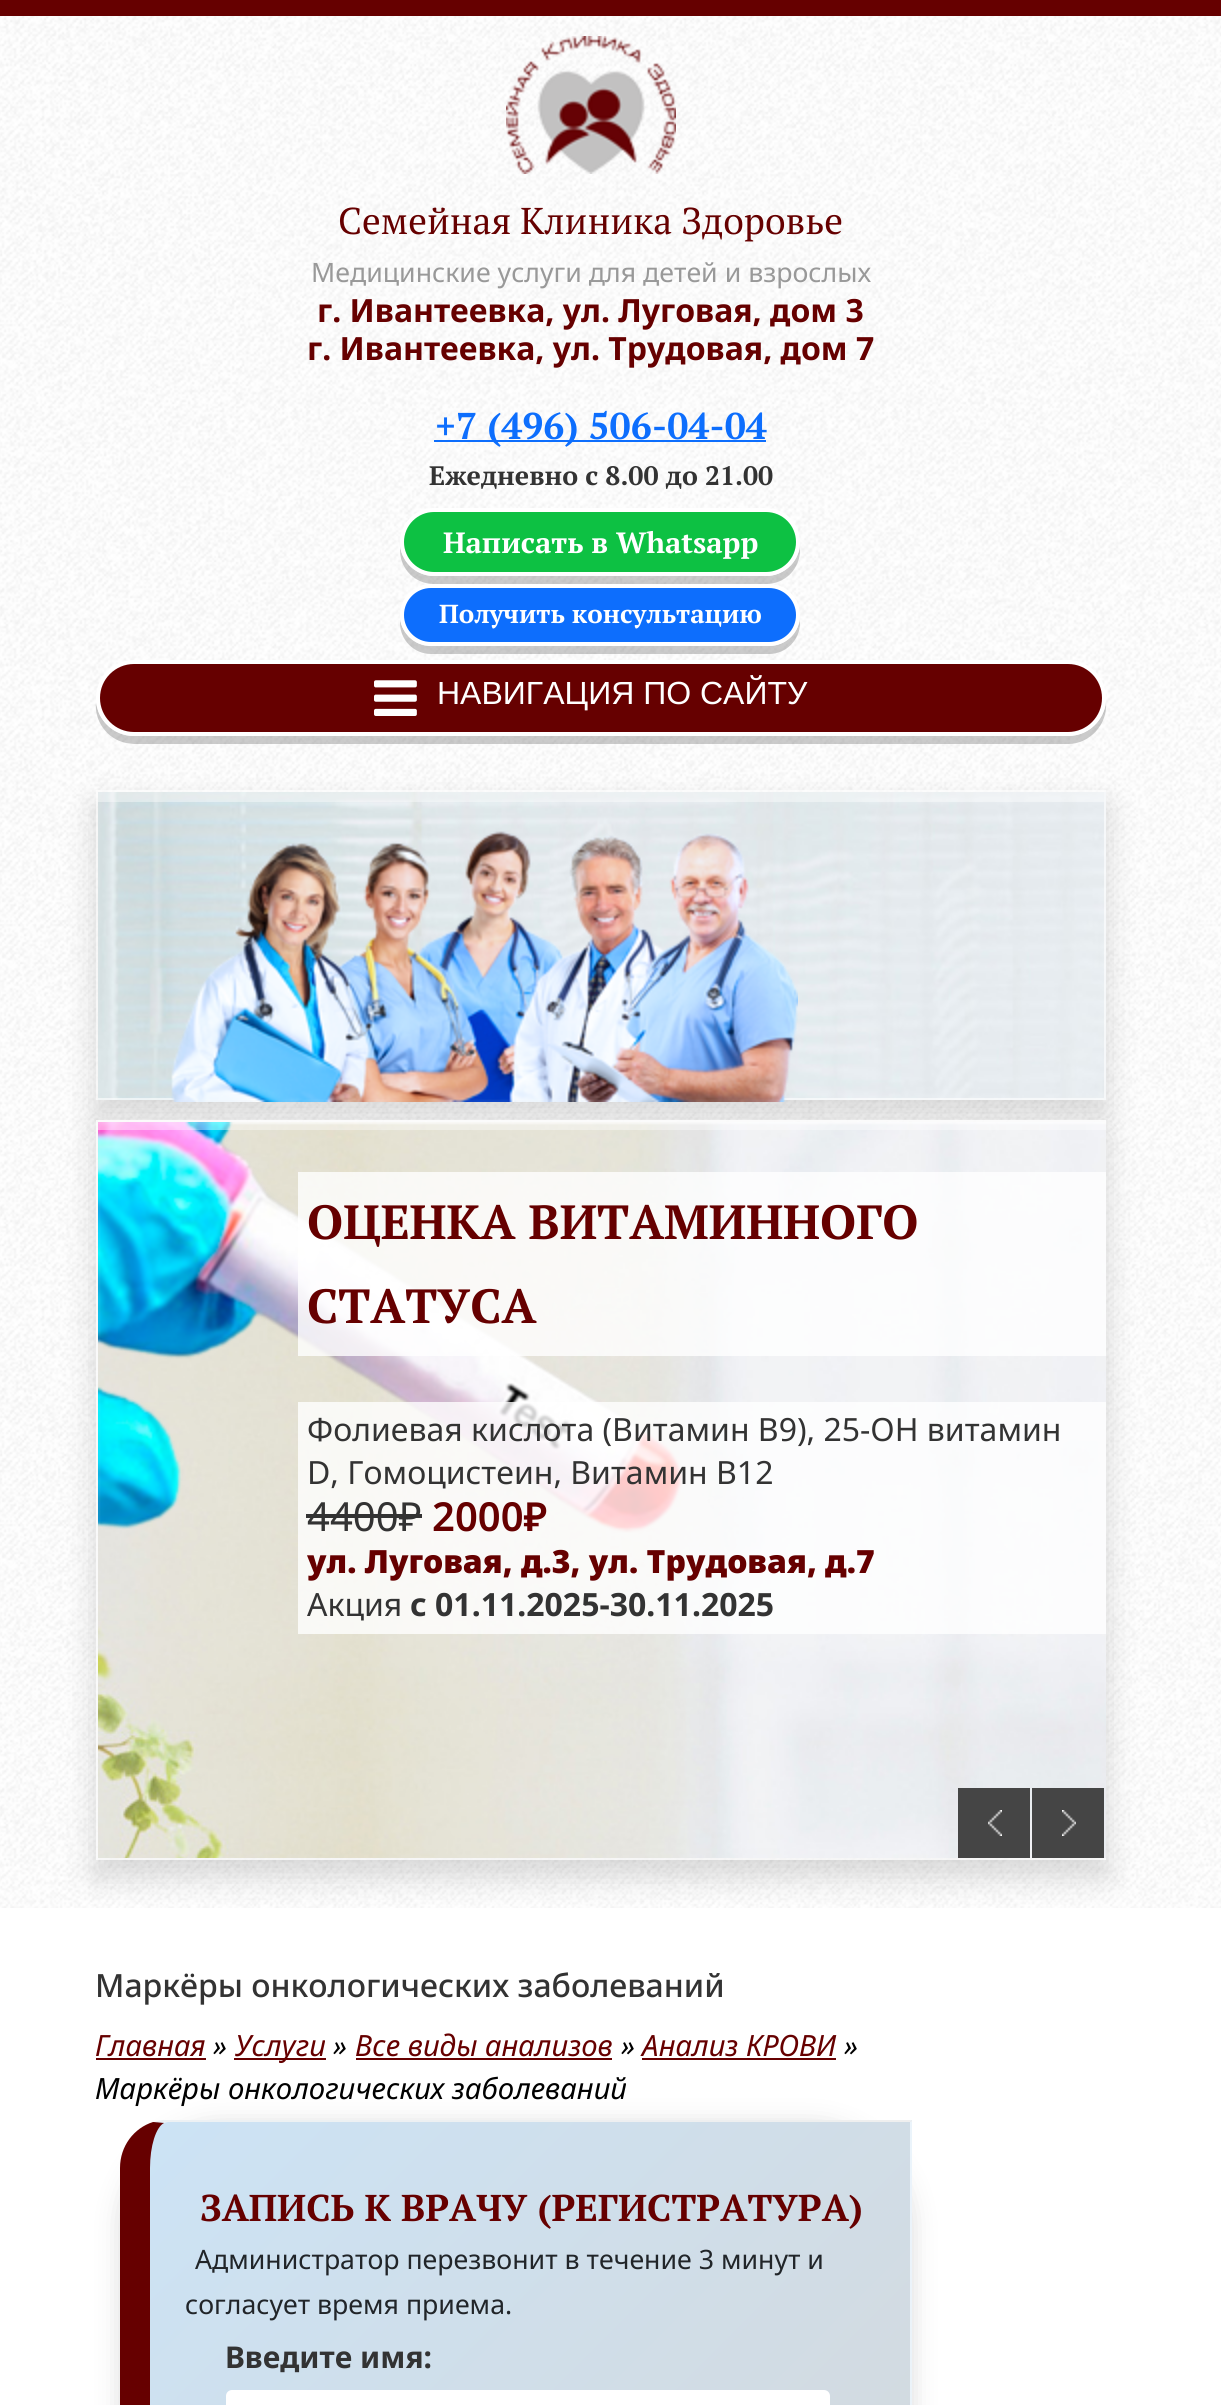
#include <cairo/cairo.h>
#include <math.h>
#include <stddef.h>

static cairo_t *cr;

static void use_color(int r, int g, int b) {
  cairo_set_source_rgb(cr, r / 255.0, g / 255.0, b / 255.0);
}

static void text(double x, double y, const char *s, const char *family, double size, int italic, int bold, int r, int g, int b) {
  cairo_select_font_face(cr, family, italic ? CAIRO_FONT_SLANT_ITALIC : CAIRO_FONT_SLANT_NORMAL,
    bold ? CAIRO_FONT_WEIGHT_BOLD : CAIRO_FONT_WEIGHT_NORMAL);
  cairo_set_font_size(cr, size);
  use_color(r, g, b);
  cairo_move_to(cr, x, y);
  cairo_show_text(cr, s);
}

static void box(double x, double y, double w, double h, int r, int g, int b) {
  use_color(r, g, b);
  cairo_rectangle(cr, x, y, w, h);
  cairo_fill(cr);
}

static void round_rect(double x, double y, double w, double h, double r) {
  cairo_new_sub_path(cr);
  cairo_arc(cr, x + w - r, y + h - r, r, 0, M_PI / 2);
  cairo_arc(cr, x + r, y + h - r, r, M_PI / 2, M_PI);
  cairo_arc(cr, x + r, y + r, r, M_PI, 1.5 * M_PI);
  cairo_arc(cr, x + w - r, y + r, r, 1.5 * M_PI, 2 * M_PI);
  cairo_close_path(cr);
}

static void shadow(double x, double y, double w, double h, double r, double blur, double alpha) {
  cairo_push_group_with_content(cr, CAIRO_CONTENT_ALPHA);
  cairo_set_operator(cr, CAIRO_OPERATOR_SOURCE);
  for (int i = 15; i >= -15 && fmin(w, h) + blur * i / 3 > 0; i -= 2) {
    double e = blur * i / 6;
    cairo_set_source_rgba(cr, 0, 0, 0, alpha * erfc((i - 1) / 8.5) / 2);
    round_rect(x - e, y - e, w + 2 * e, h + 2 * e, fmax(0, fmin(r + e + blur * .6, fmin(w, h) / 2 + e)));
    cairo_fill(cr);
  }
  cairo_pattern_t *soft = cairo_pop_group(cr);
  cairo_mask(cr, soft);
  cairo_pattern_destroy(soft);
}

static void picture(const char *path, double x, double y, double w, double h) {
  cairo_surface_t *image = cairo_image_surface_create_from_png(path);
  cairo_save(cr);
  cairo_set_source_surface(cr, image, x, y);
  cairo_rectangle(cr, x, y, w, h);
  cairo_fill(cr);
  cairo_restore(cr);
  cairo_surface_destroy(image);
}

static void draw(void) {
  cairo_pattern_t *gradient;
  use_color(255, 255, 255);
  cairo_paint(cr);
  picture("img_01.png", 0, 16, 1221, 1892);
  box(0, 0, 1221, 16, 102, 0, 0);
  picture("img_02.png", 506, 36, 170, 138);
  box(434, 440, 332, 2, 13, 110, 253);
  cairo_set_source_rgba(cr, 0, 0, 0, 0.2);
  cairo_new_path(cr);
  cairo_move_to(cr, 400, 546);
  cairo_line_to(cr, 400, 550);
  cairo_curve_to(cr, 400, 569, 415, 584, 434, 584);
  cairo_line_to(cr, 766, 584);
  cairo_curve_to(cr, 785, 584, 800, 569, 800, 550);
  cairo_line_to(cr, 800, 546);
  cairo_curve_to(cr, 798, 563, 783, 576, 766, 576);
  cairo_line_to(cr, 434, 576);
  cairo_curve_to(cr, 417, 576, 402, 563, 400, 546);
  cairo_close_path(cr);
  cairo_fill(cr);
  use_color(13, 193, 67);
  round_rect(402, 510, 396, 64, 32);
  cairo_fill_preserve(cr);
  use_color(255, 255, 255);
  cairo_set_line_width(cr, 4);
  cairo_stroke(cr);
  cairo_set_source_rgba(cr, 0, 0, 0, 0.2);
  cairo_new_path(cr);
  cairo_move_to(cr, 400, 619);
  cairo_line_to(cr, 400, 623);
  cairo_curve_to(cr, 400, 640, 414, 654, 431, 654);
  cairo_line_to(cr, 769, 654);
  cairo_curve_to(cr, 786, 654, 800, 640, 800, 623);
  cairo_line_to(cr, 800, 619);
  cairo_curve_to(cr, 798, 634, 785, 646, 769, 646);
  cairo_line_to(cr, 431, 646);
  cairo_curve_to(cr, 415, 646, 402, 634, 400, 619);
  cairo_close_path(cr);
  cairo_fill(cr);
  use_color(13, 110, 253);
  round_rect(402, 586, 396, 58, 29);
  cairo_fill_preserve(cr);
  use_color(255, 255, 255);
  cairo_stroke(cr);
  cairo_set_source_rgba(cr, 0, 0, 0, 0.2);
  cairo_new_path(cr);
  cairo_move_to(cr, 96, 702);
  cairo_curve_to(cr, 94, 721, 107, 739, 126, 743);
  cairo_line_to(cr, 134, 744);
  cairo_line_to(cr, 1068, 744);
  cairo_curve_to(cr, 1090, 744, 1108, 724, 1106, 702);
  cairo_curve_to(cr, 1104, 721, 1088, 736, 1068, 736);
  cairo_line_to(cr, 134, 736);
  cairo_curve_to(cr, 114, 736, 98, 721, 96, 702);
  cairo_close_path(cr);
  cairo_fill(cr);
  use_color(102, 0, 0);
  round_rect(98, 662, 1006, 72, 36);
  cairo_fill_preserve(cr);
  use_color(255, 255, 255);
  cairo_stroke(cr);
  picture("img_03.png", 374, 680, 43, 36);
  use_color(0, 0, 0);
  shadow(96, 806, 1010, 310, 0, 16, 0.15);
  picture("img_04.png", 98, 792, 1008, 308);
  cairo_rectangle(cr, 97, 791, 1008, 308);
  cairo_set_source_rgba(cr, 1, 1, 1, 0.6);
  cairo_set_line_width(cr, 2);
  cairo_stroke(cr);
  cairo_set_source_rgba(cr, 1, 1, 1, 0.4);
  cairo_rectangle(cr, 98, 792, 1006, 10);
  cairo_fill(cr);
  picture("img_05.png", 171, 831, 627, 271);
  use_color(0, 0, 0);
  shadow(96, 1136, 1010, 740, 0, 16, 0.15);
  cairo_set_source_rgba(cr, 1, 1, 1, 0.35);
  cairo_rectangle(cr, 96, 1120, 1010, 740);
  cairo_fill(cr);
  cairo_rectangle(cr, 97, 1121, 1008, 738);
  cairo_set_source_rgba(cr, 1, 1, 1, 0.6);
  cairo_stroke(cr);
  picture("img_06.png", 98, 1122, 1008, 736);
  picture("img_07.png", 98, 1122, 585, 411);
  cairo_set_source_rgba(cr, 1, 1, 1, 0.4);
  cairo_rectangle(cr, 98, 1120, 1008, 10);
  cairo_fill(cr);
  cairo_set_source_rgba(cr, 1, 1, 1, 0.79);
  cairo_rectangle(cr, 298, 1172, 808, 184);
  cairo_fill(cr);
  cairo_rectangle(cr, 298, 1402, 808, 232);
  cairo_fill(cr);
  box(306, 1514, 116, 4, 51, 51, 51);
  box(958, 1788, 72, 70, 69, 69, 69);
  picture("img_08.png", 988, 1810, 14, 26);
  box(1032, 1788, 72, 70, 69, 69, 69);
  picture("img_09.png", 1062, 1810, 14, 26);
  box(96, 2058, 110, 2, 102, 0, 0);
  box(234, 2058, 92, 2, 102, 0, 0);
  box(356, 2058, 256, 2, 102, 0, 0);
  box(642, 2058, 194, 2, 102, 0, 0);
  use_color(221, 221, 221);
  shadow(120, 2124, 792, 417, 100, 12, 1);
  cairo_save(cr);
  cairo_new_path(cr);
  cairo_move_to(cr, 168, 2120);
  cairo_line_to(cr, 912, 2120);
  cairo_line_to(cr, 912, 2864);
  cairo_curve_to(cr, 912, 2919, 867, 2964, 812, 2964);
  cairo_line_to(cr, 168, 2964);
  cairo_curve_to(cr, 141.5, 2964, 120, 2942.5, 120, 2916);
  cairo_line_to(cr, 120, 2168);
  cairo_curve_to(cr, 120, 2141.5, 141.5, 2120, 168, 2120);
  cairo_close_path(cr);
  cairo_clip(cr);
  gradient = cairo_pattern_create_linear(130, 1302, 930, 2102);
  cairo_pattern_add_color_stop_rgba(gradient, 0, 0.8, 0.89, 0.961, 1);
  cairo_pattern_add_color_stop_rgba(gradient, 1, 0.839, 0.839, 0.839, 1);
  cairo_set_source(cr, gradient);
  cairo_pattern_destroy(gradient);
  cairo_rectangle(cr, 150, 2120, 760, 2);
  cairo_fill(cr);
  cairo_restore(cr);
  gradient = cairo_pattern_create_linear(890, 1302, 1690, 2102);
  cairo_pattern_add_color_stop_rgba(gradient, 0, 0.8, 0.89, 0.961, 1);
  cairo_pattern_add_color_stop_rgba(gradient, 1, 0.839, 0.839, 0.839, 1);
  cairo_set_source(cr, gradient);
  cairo_pattern_destroy(gradient);
  cairo_rectangle(cr, 910, 2120, 2, 2);
  cairo_fill(cr);
  cairo_save(cr);
  cairo_new_path(cr);
  cairo_move_to(cr, 168, 2120);
  cairo_line_to(cr, 912, 2120);
  cairo_line_to(cr, 912, 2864);
  cairo_curve_to(cr, 912, 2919, 867, 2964, 812, 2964);
  cairo_line_to(cr, 168, 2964);
  cairo_curve_to(cr, 141.5, 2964, 120, 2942.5, 120, 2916);
  cairo_line_to(cr, 120, 2168);
  cairo_curve_to(cr, 120, 2141.5, 141.5, 2120, 168, 2120);
  cairo_close_path(cr);
  cairo_clip(cr);
  gradient = cairo_pattern_create_linear(130, 2142, 930, 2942);
  cairo_pattern_add_color_stop_rgba(gradient, 0, 0.8, 0.89, 0.961, 1);
  cairo_pattern_add_color_stop_rgba(gradient, 1, 0.839, 0.839, 0.839, 1);
  cairo_set_source(cr, gradient);
  cairo_pattern_destroy(gradient);
  cairo_rectangle(cr, 150, 2122, 760, 283);
  cairo_fill(cr);
  cairo_restore(cr);
  gradient = cairo_pattern_create_linear(890, 2142, 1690, 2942);
  cairo_pattern_add_color_stop_rgba(gradient, 0, 0.8, 0.89, 0.961, 1);
  cairo_pattern_add_color_stop_rgba(gradient, 1, 0.839, 0.839, 0.839, 1);
  cairo_set_source(cr, gradient);
  cairo_pattern_destroy(gradient);
  cairo_rectangle(cr, 910, 2122, 2, 283);
  cairo_fill(cr);
  cairo_set_source_rgba(cr, 1, 1, 1, 0.6);
  cairo_new_path(cr);
  cairo_move_to(cr, 168, 2120);
  cairo_curve_to(cr, 163, 2120, 158, 2121, 153, 2122);
  cairo_line_to(cr, 164, 2123);
  cairo_line_to(cr, 168, 2122);
  cairo_line_to(cr, 910, 2122);
  cairo_line_to(cr, 912, 2120);
  cairo_close_path(cr);
  cairo_fill(cr);
  cairo_new_path(cr);
  cairo_move_to(cr, 912, 2120);
  cairo_line_to(cr, 910, 2122);
  cairo_line_to(cr, 910, 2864);
  cairo_curve_to(cr, 910, 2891, 899, 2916, 881, 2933);
  cairo_line_to(cr, 883, 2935);
  cairo_curve_to(cr, 901, 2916, 912, 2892, 912, 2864);
  cairo_close_path(cr);
  cairo_fill(cr);
  use_color(102, 0, 0);
  cairo_new_path(cr);
  cairo_move_to(cr, 120, 2168);
  cairo_line_to(cr, 120, 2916);
  cairo_curve_to(cr, 120, 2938, 134, 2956, 153, 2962);
  cairo_line_to(cr, 164, 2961);
  cairo_curve_to(cr, 156, 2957, 150, 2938, 150, 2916);
  cairo_line_to(cr, 150, 2168);
  cairo_curve_to(cr, 150, 2146, 156, 2127, 164, 2123);
  cairo_line_to(cr, 153, 2122);
  cairo_curve_to(cr, 134, 2128, 120, 2146, 120, 2168);
  cairo_close_path(cr);
  cairo_fill(cr);
  use_color(255, 255, 255);
  round_rect(226, 2390, 604, 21, 6);
  cairo_fill(cr);
  text(338, 234, "Семейная Клиника Здоровье", "PT Serif", 37.3, 0, 0, 102, 0, 0);
  text(311, 282, "Медицинские услуги для детей и взрослых", "Noto Sans", 26.7, 0, 0, 153, 153, 153);
  text(317, 322, "г. Ивантеевка, ул. Луговая, дом 3", "Noto Sans", 32, 0, 1, 102, 0, 0);
  text(307, 360, "г. Ивантеевка, ул. Трудовая, дом 7", "Noto Sans", 32, 0, 1, 102, 0, 0);
  text(435, 439, "+7 (496) 506-04-04", "PT Serif", 37.3, 0, 1, 13, 110, 253);
  text(429, 485, "Ежедневно с 8.00 до 21.00", "PT Serif", 26.7, 0, 1, 51, 51, 51);
  text(443, 553, "Написать в Whatsapp", "PT Serif", 29.3, 0, 1, 255, 255, 255);
  text(439, 623, "Получить консультацию", "PT Serif", 26, 0, 1, 255, 255, 255);
  text(437, 704, "НАВИГАЦИЯ ПО САЙТУ", "Liberation Sans", 32, 0, 0, 255, 255, 255);
  text(307, 1239, "ОЦЕНКА ВИТАМИННОГО", "PT Serif", 48, 0, 1, 102, 0, 0);
  text(307, 1323, "СТАТУСА", "PT Serif", 48, 0, 1, 102, 0, 0);
  text(307, 1441, "Фолиевая кислота (Витамин В9), 25-ОН витамин", "Noto Sans", 32, 0, 0, 51, 51, 51);
  text(307, 1484, "D, Гомоцистеин, Витамин B12", "Noto Sans", 32, 0, 0, 51, 51, 51);
  text(307, 1531, "4400₽", "Noto Sans", 40, 0, 0, 51, 51, 51);
  text(432, 1531, "2000₽", "Noto Sans SemiBold", 40, 0, 0, 102, 0, 0);
  text(307, 1573, "ул. Луговая, д.3, ул. Трудовая, д.7", "Noto Sans Black", 32, 0, 0, 102, 0, 0);
  text(307, 1616, "Акция", "Noto Sans", 32, 0, 0, 51, 51, 51);
  text(410, 1616, "с 01.11.2025-30.11.2025", "Noto Sans", 32, 0, 1, 51, 51, 51);
  text(95, 1997, "Маркёры онкологических заболеваний", "Noto Sans Medium", 32, 0, 0, 51, 51, 51);
  text(95, 2056, "Главная", "Noto Sans", 29.3, 1, 0, 102, 0, 0);
  text(213, 2056, "»", "Noto Sans", 29.3, 1, 0, 0, 0, 0);
  text(235, 2056, "Услуги", "Noto Sans", 29.3, 1, 0, 102, 0, 0);
  text(333, 2056, "»", "Noto Sans", 29.3, 1, 0, 0, 0, 0);
  text(355, 2056, "Все виды анализов", "Noto Sans", 29.3, 1, 0, 102, 0, 0);
  text(621, 2056, "»", "Noto Sans", 29.3, 1, 0, 0, 0, 0);
  text(642, 2056, "Анализ КРОВИ", "Noto Sans", 29.3, 1, 0, 102, 0, 0);
  text(844, 2056, "»", "Noto Sans", 29.3, 1, 0, 0, 0, 0);
  text(95, 2099, "Маркёры онкологических заболеваний", "Noto Sans", 29.3, 1, 0, 0, 0, 0);
  text(200, 2221, "ЗАПИСЬ К ВРАЧУ (РЕГИСТРАТУРА)", "PT Serif", 37.3, 0, 1, 102, 0, 0);
  text(195, 2269, "Администратор перезвонит в течение 3 минут и", "Noto Sans", 26.7, 0, 0, 33, 37, 41);
  text(185, 2314, "согласует время приема.", "Noto Sans", 26.7, 0, 0, 33, 37, 41);
  text(225, 2368, "Введите имя:", "Noto Sans", 30, 0, 1, 51, 51, 51);
}

int main(void) {
  cairo_surface_t *surface = cairo_image_surface_create(CAIRO_FORMAT_RGB24, 1221, 2405);
  cr = cairo_create(surface);
  cairo_font_options_t *options = cairo_font_options_create();
  cairo_font_options_set_hint_metrics(options, CAIRO_HINT_METRICS_OFF);
  cairo_font_options_set_hint_style(options, CAIRO_HINT_STYLE_NONE);
  cairo_set_font_options(cr, options);
  cairo_set_miter_limit(cr, 4);
  draw();
  cairo_surface_write_to_png(surface, "out.png");
  cairo_font_options_destroy(options);
  cairo_destroy(cr);
  cairo_surface_destroy(surface);
  return 0;
}
